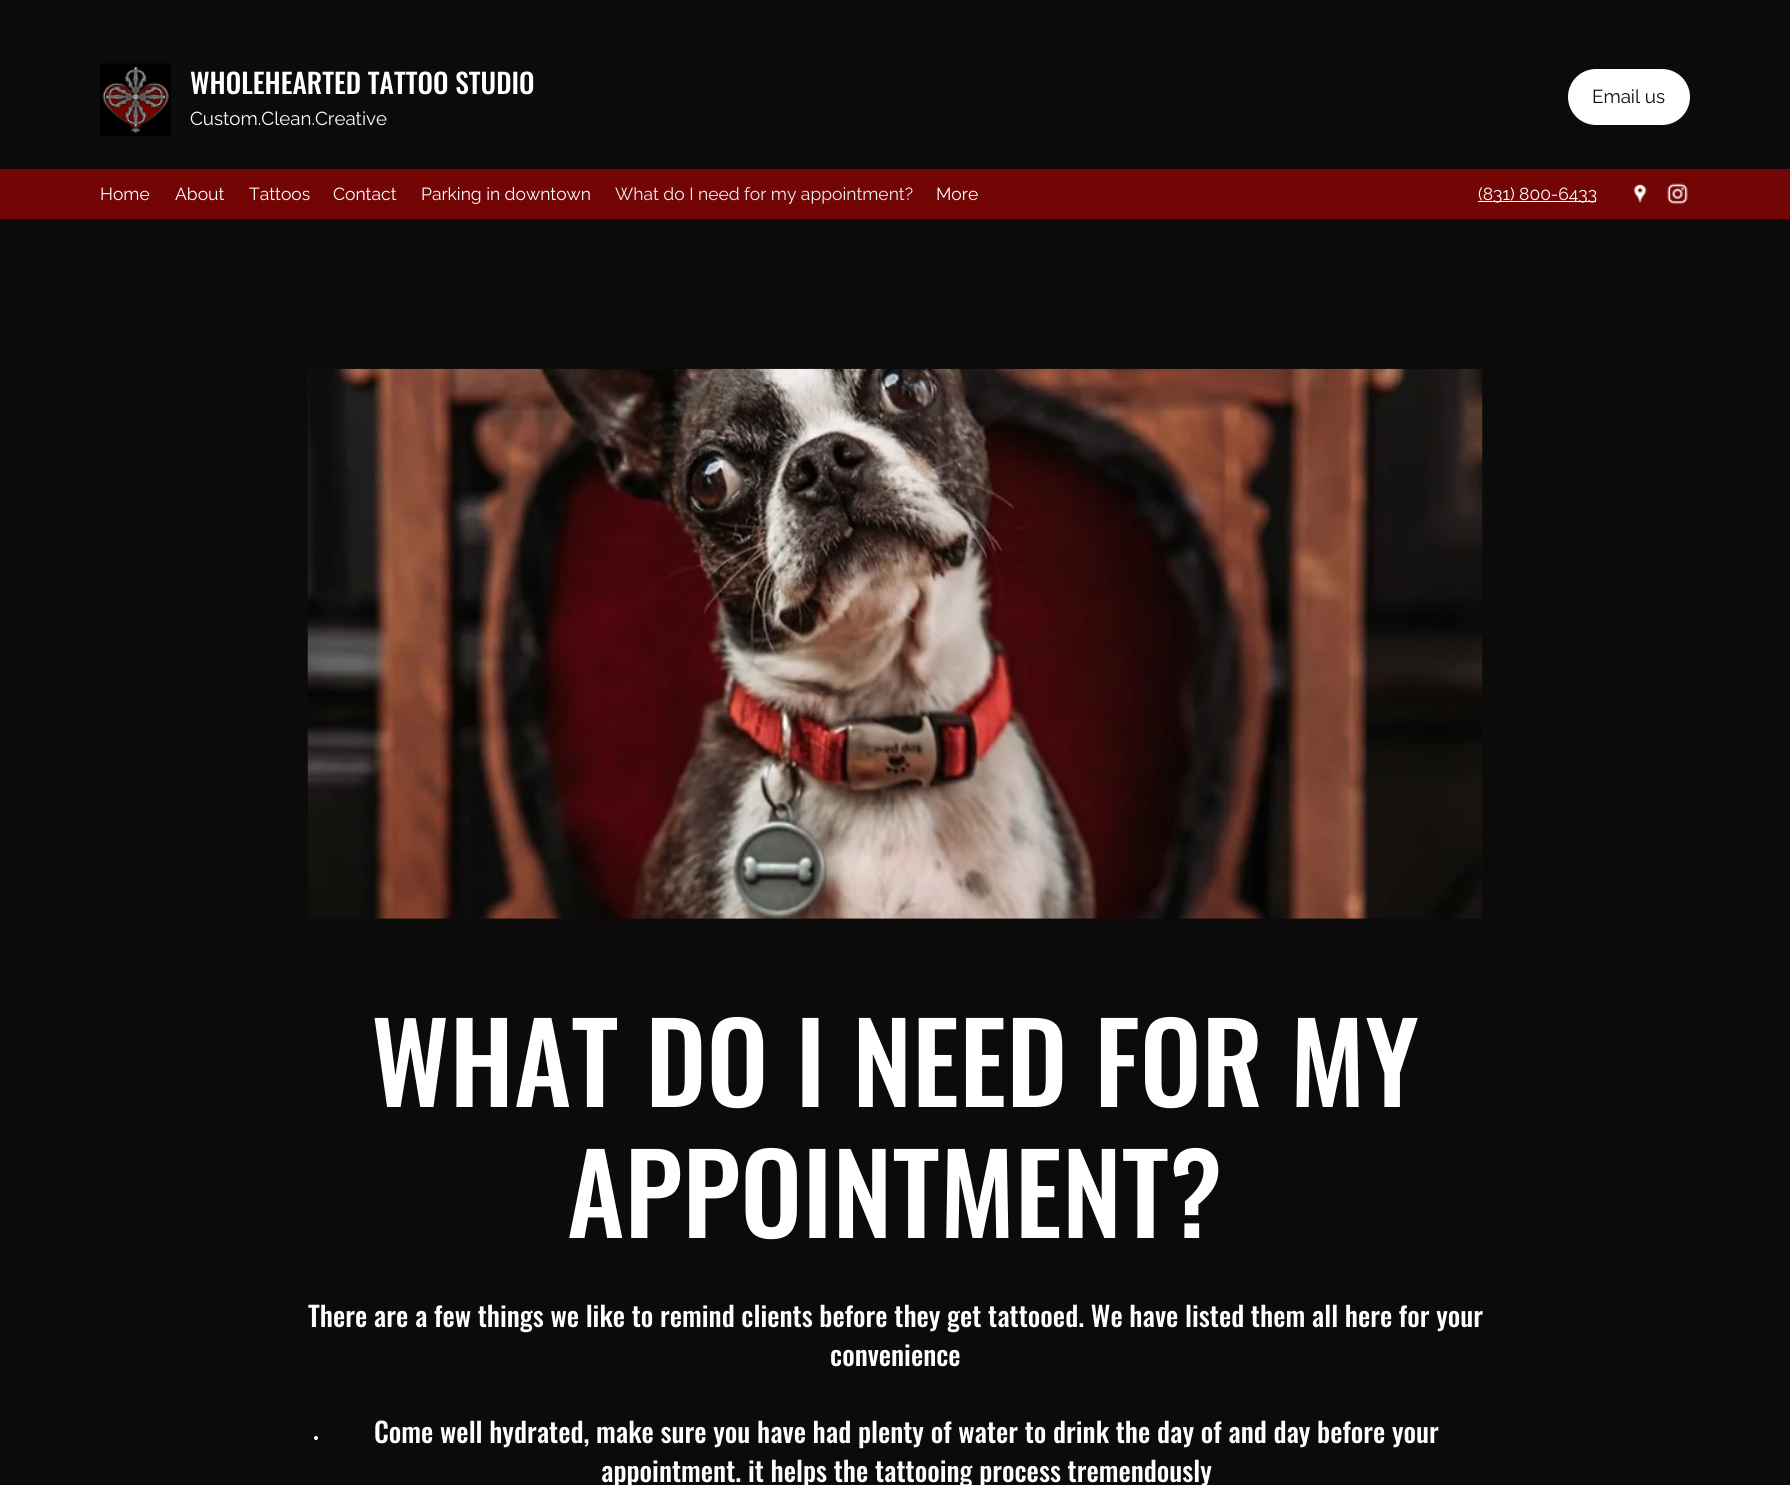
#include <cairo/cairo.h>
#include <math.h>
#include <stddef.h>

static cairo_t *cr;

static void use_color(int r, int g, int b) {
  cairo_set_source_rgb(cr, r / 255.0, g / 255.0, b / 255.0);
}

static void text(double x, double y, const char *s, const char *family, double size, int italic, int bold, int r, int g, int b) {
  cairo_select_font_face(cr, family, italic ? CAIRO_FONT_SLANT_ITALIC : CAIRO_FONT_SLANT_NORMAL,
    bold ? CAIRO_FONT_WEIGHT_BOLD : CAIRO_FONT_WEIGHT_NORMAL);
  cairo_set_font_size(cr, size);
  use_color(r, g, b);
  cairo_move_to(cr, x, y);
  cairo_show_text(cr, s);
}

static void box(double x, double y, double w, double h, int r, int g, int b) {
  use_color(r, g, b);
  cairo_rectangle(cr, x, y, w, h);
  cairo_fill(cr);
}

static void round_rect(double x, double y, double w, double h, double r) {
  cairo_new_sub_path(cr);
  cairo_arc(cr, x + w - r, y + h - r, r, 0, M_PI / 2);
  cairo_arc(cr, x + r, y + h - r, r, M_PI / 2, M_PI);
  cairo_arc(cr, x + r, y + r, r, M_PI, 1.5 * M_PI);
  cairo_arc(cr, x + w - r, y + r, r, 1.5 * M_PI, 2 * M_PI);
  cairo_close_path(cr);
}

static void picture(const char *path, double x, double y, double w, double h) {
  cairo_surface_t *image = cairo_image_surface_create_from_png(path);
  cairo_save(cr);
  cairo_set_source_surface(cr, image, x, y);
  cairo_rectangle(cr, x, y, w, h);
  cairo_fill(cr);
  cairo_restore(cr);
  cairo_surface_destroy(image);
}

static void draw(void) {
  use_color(12, 11, 11);
  cairo_paint(cr);
  picture("img_01.png", 100, 63, 71, 73);
  use_color(255, 255, 255);
  round_rect(1568, 69, 122, 56, 28);
  cairo_fill(cr);
  box(0, 169, 1790, 50, 115, 5, 5);
  box(1478, 201, 118, 1, 255, 255, 255);
  picture("img_02.png", 1633, 183, 14, 20);
  picture("img_03.png", 1667, 183, 21, 21);
  picture("img_04.png", 307, 368, 1176, 551);
  cairo_arc(cr, 316, 1438, 2, 0, 2 * M_PI);
  cairo_fill(cr);
  text(190, 94, "WHOLEHEARTED TATTOO STUDIO", "Oswald Medium", 27.5, 0, 0, 255, 255, 255);
  text(190, 125, "Custom.Clean.Creative", "Raleway", 18.75, 0, 0, 255, 255, 255);
  text(1592, 103, "Email us", "Raleway", 18.75, 0, 0, 12, 11, 11);
  text(100, 200, "Home", "Raleway", 17.5, 0, 0, 255, 255, 255);
  text(175, 200, "About", "Raleway", 17.5, 0, 0, 255, 255, 255);
  text(249, 200, "Tattoos", "Raleway", 17.5, 0, 0, 255, 255, 255);
  text(333, 200, "Contact", "Raleway", 17.5, 0, 0, 255, 255, 255);
  text(421, 200, "Parking in downtown", "Raleway", 17.5, 0, 0, 255, 255, 255);
  text(615, 200, "What do I need for my appointment?", "Raleway", 17.5, 0, 0, 240, 240, 240);
  text(936, 200, "More", "Raleway", 17.5, 0, 0, 255, 255, 255);
  text(1478, 200, "(831) 800-6433", "Raleway", 17.5, 0, 0, 255, 255, 255);
  text(371, 1107, "WHAT DO I NEED FOR MY", "Oswald Medium", 110, 0, 0, 255, 255, 255);
  text(567, 1238, "APPOINTMENT?", "Oswald Medium", 110, 0, 0, 255, 255, 255);
  text(308, 1327, "There are a few things we like to remind clients before they get tattooed. We have listed them all here for your", "Oswald Medium", 27.5, 0, 0, 255, 255, 255);
  text(830, 1366, "convenience", "Oswald Medium", 27.5, 0, 0, 255, 255, 255);
  text(374, 1443, "Come well hydrated, make sure you have had plenty of water to drink the day of and day before your", "Oswald Medium", 27.5, 0, 0, 255, 255, 255);
  text(601, 1482, "appointment. it helps the tattooing process tremendously", "Oswald Medium", 27.5, 0, 0, 255, 255, 255);
}

int main(void) {
  cairo_surface_t *surface = cairo_image_surface_create(CAIRO_FORMAT_RGB24, 1790, 1485);
  cr = cairo_create(surface);
  cairo_font_options_t *options = cairo_font_options_create();
  cairo_font_options_set_hint_metrics(options, CAIRO_HINT_METRICS_OFF);
  cairo_font_options_set_hint_style(options, CAIRO_HINT_STYLE_NONE);
  cairo_set_font_options(cr, options);
  cairo_set_miter_limit(cr, 4);
  draw();
  cairo_surface_write_to_png(surface, "out.png");
  cairo_font_options_destroy(options);
  cairo_destroy(cr);
  cairo_surface_destroy(surface);
  return 0;
}
